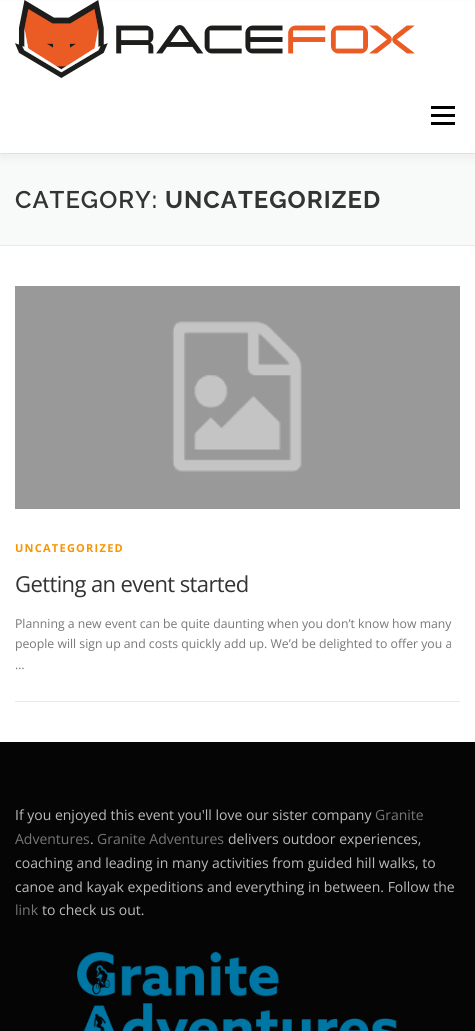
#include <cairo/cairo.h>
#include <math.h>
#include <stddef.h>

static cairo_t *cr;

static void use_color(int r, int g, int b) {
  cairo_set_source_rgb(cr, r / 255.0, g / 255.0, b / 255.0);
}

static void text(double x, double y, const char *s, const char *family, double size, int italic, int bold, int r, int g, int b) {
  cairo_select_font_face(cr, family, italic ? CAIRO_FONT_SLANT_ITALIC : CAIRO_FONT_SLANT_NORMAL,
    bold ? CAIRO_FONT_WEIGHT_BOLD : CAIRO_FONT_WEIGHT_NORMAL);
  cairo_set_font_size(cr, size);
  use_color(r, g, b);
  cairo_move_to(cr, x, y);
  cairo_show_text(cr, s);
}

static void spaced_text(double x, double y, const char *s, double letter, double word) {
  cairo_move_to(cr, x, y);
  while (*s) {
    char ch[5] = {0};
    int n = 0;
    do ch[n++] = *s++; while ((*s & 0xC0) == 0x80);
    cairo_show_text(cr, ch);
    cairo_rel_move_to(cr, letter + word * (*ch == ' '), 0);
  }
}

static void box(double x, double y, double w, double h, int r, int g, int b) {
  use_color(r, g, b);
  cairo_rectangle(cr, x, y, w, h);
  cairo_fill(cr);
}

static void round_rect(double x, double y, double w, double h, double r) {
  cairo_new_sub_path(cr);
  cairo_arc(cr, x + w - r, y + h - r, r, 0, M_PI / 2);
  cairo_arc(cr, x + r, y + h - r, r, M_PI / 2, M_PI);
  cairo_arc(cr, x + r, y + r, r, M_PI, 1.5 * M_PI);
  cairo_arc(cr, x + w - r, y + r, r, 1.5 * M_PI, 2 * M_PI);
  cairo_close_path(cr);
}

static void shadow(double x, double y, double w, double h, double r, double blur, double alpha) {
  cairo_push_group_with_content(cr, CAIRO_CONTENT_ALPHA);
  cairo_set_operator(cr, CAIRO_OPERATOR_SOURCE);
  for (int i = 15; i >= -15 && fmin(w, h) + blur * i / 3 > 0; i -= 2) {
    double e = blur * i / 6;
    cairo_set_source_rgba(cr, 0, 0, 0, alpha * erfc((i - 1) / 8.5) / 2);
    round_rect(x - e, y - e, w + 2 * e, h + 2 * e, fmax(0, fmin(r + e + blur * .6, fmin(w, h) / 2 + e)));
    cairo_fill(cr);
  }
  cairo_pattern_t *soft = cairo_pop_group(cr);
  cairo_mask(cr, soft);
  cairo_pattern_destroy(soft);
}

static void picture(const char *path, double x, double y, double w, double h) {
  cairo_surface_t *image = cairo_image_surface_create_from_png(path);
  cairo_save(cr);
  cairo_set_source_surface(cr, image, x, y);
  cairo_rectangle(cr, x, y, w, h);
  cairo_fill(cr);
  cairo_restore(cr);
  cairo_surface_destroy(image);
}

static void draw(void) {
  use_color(255, 255, 255);
  cairo_paint(cr);
  box(0, 154, 475, 91, 248, 249, 249);
  box(0, 153, 475, 1, 233, 233, 233);
  use_color(50, 50, 50);
  shadow(0, 5, 475, 153, 0, 5, 0.06);
  box(0, 1, 475, 152, 255, 255, 255);
  picture("img_01.png", 15, 0, 400, 78);
  box(431, 114, 24, 3, 0, 0, 0);
  box(431, 106, 24, 3, 0, 0, 0);
  box(431, 122, 24, 3, 0, 0, 0);
  box(0, 245, 475, 1, 233, 233, 233);
  box(15, 701, 445, 1, 233, 233, 233);
  picture("img_02.png", 15, 286, 445, 223);
  box(0, 742, 475, 289, 5, 5, 5);
  picture("img_03.png", 77, 952, 320, 79);
  cairo_select_font_face(cr, "Raleway SemiBold", CAIRO_FONT_SLANT_NORMAL, CAIRO_FONT_WEIGHT_NORMAL);
  cairo_set_font_size(cr, 24);
  use_color(51, 51, 51);
  spaced_text(15, 208, "CATEGORY:", 1, 0);
  cairo_select_font_face(cr, "Raleway", CAIRO_FONT_SLANT_NORMAL, CAIRO_FONT_WEIGHT_BOLD);
  spaced_text(165, 208, "UNCATEGORIZED", 1, 0);
  cairo_select_font_face(cr, "Open Sans", CAIRO_FONT_SLANT_NORMAL, CAIRO_FONT_WEIGHT_BOLD);
  cairo_set_font_size(cr, 11);
  use_color(247, 149, 2);
  spaced_text(15, 552, "UNCATEGORIZED", 1.25, 0);
  cairo_select_font_face(cr, "Open Sans", CAIRO_FONT_SLANT_NORMAL, CAIRO_FONT_WEIGHT_NORMAL);
  cairo_set_font_size(cr, 22);
  use_color(51, 51, 51);
  spaced_text(15, 592, "Getting an event started", -0.6, 0);
  text(15, 628, "Planning a new event can be quite daunting when you don’t know how many", "Open Sans", 12.25, 0, 0, 119, 119, 119);
  text(15, 648, "people will sign up and costs quickly add up. We’d be delighted to offer you a", "Open Sans", 12.25, 0, 0, 119, 119, 119);
  text(15, 669, "…", "Open Sans", 12.25, 0, 0, 119, 119, 119);
  text(15, 820, "If you enjoyed this event you'll love our sister company", "Open Sans", 14, 0, 0, 187, 187, 187);
  text(375, 820, "Granite", "Open Sans", 14, 0, 0, 119, 119, 119);
  text(15, 844, "Adventures", "Open Sans", 14, 0, 0, 119, 119, 119);
  text(90, 844, ".", "Open Sans", 14, 0, 0, 187, 187, 187);
  text(97, 844, "Granite Adventures", "Open Sans", 14, 0, 0, 119, 119, 119);
  text(228, 844, "delivers outdoor experiences,", "Open Sans", 14, 0, 0, 187, 187, 187);
  text(15, 868, "coaching and leading in many activities from guided hill walks, to", "Open Sans", 14, 0, 0, 187, 187, 187);
  text(15, 892, "canoe and kayak expeditions and everything in between. Follow the", "Open Sans", 14, 0, 0, 187, 187, 187);
  text(15, 915, "link", "Open Sans", 14, 0, 0, 119, 119, 119);
  text(42, 915, "to check us out.", "Open Sans", 14, 0, 0, 187, 187, 187);
}

int main(void) {
  cairo_surface_t *surface = cairo_image_surface_create(CAIRO_FORMAT_RGB24, 475, 1031);
  cr = cairo_create(surface);
  cairo_font_options_t *options = cairo_font_options_create();
  cairo_font_options_set_hint_metrics(options, CAIRO_HINT_METRICS_OFF);
  cairo_font_options_set_hint_style(options, CAIRO_HINT_STYLE_NONE);
  cairo_set_font_options(cr, options);
  cairo_set_miter_limit(cr, 4);
  draw();
  cairo_surface_write_to_png(surface, "out.png");
  cairo_font_options_destroy(options);
  cairo_destroy(cr);
  cairo_surface_destroy(surface);
  return 0;
}
